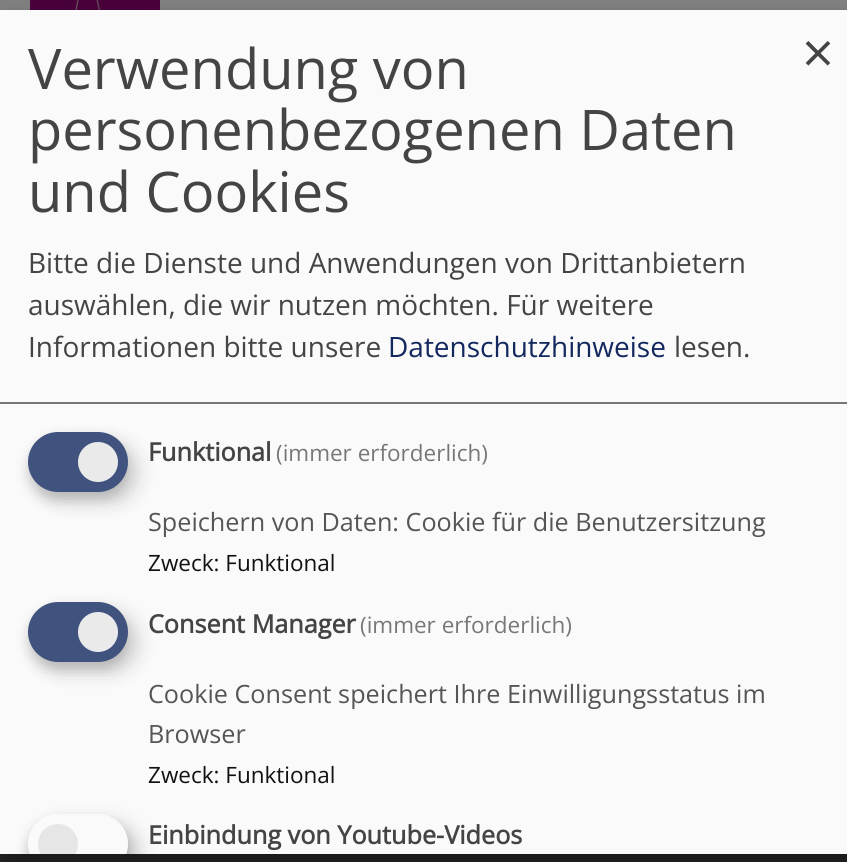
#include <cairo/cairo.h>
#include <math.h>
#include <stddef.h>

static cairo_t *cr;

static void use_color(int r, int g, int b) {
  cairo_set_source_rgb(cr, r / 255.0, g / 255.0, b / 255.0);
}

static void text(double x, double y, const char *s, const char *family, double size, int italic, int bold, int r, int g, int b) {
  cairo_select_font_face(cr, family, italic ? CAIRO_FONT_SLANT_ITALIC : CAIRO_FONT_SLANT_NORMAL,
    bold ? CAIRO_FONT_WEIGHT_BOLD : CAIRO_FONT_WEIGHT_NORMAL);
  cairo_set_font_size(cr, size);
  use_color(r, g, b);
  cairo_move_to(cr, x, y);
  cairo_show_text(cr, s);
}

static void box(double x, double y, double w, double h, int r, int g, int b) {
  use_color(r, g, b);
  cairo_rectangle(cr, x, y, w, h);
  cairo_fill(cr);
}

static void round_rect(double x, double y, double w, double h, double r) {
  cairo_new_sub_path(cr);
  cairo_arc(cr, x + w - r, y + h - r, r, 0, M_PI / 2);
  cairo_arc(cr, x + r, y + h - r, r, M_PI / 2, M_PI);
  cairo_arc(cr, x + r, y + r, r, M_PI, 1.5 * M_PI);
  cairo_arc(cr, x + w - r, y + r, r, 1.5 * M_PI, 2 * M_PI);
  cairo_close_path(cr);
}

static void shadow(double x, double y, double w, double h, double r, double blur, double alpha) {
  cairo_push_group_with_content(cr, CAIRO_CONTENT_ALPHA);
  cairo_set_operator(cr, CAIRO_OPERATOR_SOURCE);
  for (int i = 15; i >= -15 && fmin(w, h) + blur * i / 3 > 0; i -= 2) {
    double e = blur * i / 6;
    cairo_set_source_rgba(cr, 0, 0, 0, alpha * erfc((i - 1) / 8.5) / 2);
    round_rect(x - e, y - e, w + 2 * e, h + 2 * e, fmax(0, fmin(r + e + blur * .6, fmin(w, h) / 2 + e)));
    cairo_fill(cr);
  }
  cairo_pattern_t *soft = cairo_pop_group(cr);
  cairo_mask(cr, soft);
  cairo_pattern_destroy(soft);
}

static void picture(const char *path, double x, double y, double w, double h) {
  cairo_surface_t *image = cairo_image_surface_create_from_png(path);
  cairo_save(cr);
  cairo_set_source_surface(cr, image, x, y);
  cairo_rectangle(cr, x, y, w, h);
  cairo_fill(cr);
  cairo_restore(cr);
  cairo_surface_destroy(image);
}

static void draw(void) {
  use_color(128, 128, 128);
  cairo_paint(cr);
  picture("img_01.png", 30, 0, 130, 10);
  box(0, 854, 847, 8, 39, 39, 39);
  use_color(0, 0, 0);
  shadow(10, 20, 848, 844, 0, 10, 0.19);
  shadow(0, 18, 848, 844, 0, 6, 0.2);
  box(0, 10, 847, 844, 250, 250, 250);
  box(0, 402, 847, 2, 119, 119, 119);
  use_color(0, 0, 0);
  shadow(38, 442, 100, 60, 30, 10, 0.15);
  use_color(50, 50, 50);
  shadow(28, 440, 100, 60, 30, 6, 0.2);
  use_color(64, 82, 126);
  round_rect(28, 432, 100, 60, 30);
  cairo_fill(cr);
  use_color(234, 234, 234);
  cairo_arc(cr, 98, 462, 20, 0, 2 * M_PI);
  cairo_fill(cr);
  use_color(0, 0, 0);
  shadow(38, 612, 100, 60, 30, 10, 0.15);
  use_color(50, 50, 50);
  shadow(28, 610, 100, 60, 30, 6, 0.2);
  use_color(64, 82, 126);
  round_rect(28, 602, 100, 60, 30);
  cairo_fill(cr);
  use_color(234, 234, 234);
  cairo_arc(cr, 98, 632, 20, 0, 2 * M_PI);
  cairo_fill(cr);
  cairo_save(cr);
  cairo_rectangle(cr, 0, 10, 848, 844);
  cairo_clip(cr);
  cairo_set_fill_rule(cr, CAIRO_FILL_RULE_EVEN_ODD);
  cairo_new_path(cr);
  cairo_move_to(cr, 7, 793);
  cairo_line_to(cr, 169, 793);
  cairo_line_to(cr, 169, 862);
  cairo_line_to(cr, 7, 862);
  cairo_close_path(cr);
  cairo_move_to(cr, 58, 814);
  cairo_line_to(cr, 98, 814);
  cairo_curve_to(cr, 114.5, 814, 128, 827.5, 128, 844);
  cairo_curve_to(cr, 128, 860.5, 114.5, 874, 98, 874);
  cairo_line_to(cr, 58, 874);
  cairo_curve_to(cr, 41.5, 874, 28, 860.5, 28, 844);
  cairo_curve_to(cr, 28, 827.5, 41.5, 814, 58, 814);
  cairo_close_path(cr);
  cairo_clip(cr);
  use_color(0, 0, 0);
  shadow(38, 824, 100, 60, 30, 10, 0.19);
  cairo_restore(cr);
  cairo_save(cr);
  cairo_rectangle(cr, 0, 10, 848, 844);
  cairo_clip(cr);
  cairo_set_fill_rule(cr, CAIRO_FILL_RULE_EVEN_ODD);
  cairo_new_path(cr);
  cairo_move_to(cr, 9, 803);
  cairo_line_to(cr, 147, 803);
  cairo_line_to(cr, 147, 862);
  cairo_line_to(cr, 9, 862);
  cairo_close_path(cr);
  cairo_move_to(cr, 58, 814);
  cairo_line_to(cr, 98, 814);
  cairo_curve_to(cr, 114.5, 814, 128, 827.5, 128, 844);
  cairo_curve_to(cr, 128, 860.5, 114.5, 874, 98, 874);
  cairo_line_to(cr, 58, 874);
  cairo_curve_to(cr, 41.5, 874, 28, 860.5, 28, 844);
  cairo_curve_to(cr, 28, 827.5, 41.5, 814, 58, 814);
  cairo_close_path(cr);
  cairo_clip(cr);
  use_color(0, 0, 0);
  shadow(28, 822, 100, 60, 30, 6, 0.2);
  cairo_restore(cr);
  cairo_save(cr);
  cairo_rectangle(cr, 0, 10, 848, 844);
  cairo_clip(cr);
  use_color(230, 230, 230);
  cairo_arc(cr, 58, 844, 20, 0, 2 * M_PI);
  cairo_fill(cr);
  cairo_restore(cr);
  text(28, 89, "Verwendung von", "Open Sans", 56, 0, 0, 68, 68, 68);
  text(28, 150, "personenbezogenen Daten", "Open Sans", 56, 0, 0, 68, 68, 68);
  text(28, 212, "und Cookies", "Open Sans", 56, 0, 0, 68, 68, 68);
  text(28, 273, "Bitte die Dienste und Anwendungen von Drittanbietern", "Open Sans", 28, 0, 0, 68, 68, 68);
  text(28, 315, "auswählen, die wir nutzen möchten. Für weitere", "Open Sans", 28, 0, 0, 68, 68, 68);
  text(28, 357, "Informationen bitte unsere", "Open Sans", 28, 0, 0, 68, 68, 68);
  text(388, 357, "Datenschutzhinweise", "Open Sans", 28, 0, 0, 18, 40, 95);
  text(674, 357, "lesen.", "Open Sans", 28, 0, 0, 68, 68, 68);
  text(802, 73, "×", "Open Sans", 56, 0, 0, 68, 68, 68);
  text(148, 461, "Funktional", "Open Sans", 25.2, 0, 1, 68, 68, 68);
  text(276, 461, "(immer erforderlich)", "Open Sans", 22.5, 0, 0, 119, 119, 119);
  text(148, 531, "Speichern von Daten: Cookie für die Benutzersitzung", "Open Sans", 25.2, 0, 0, 85, 85, 85);
  text(148, 571, "Zweck: Funktional", "Open Sans", 22.5, 0, 0, 17, 17, 17);
  text(148, 633, "Consent Manager", "Open Sans", 25.2, 0, 1, 68, 68, 68);
  text(360, 633, "(immer erforderlich)", "Open Sans", 22.5, 0, 0, 119, 119, 119);
  text(148, 703, "Cookie Consent speichert Ihre Einwilligungsstatus im", "Open Sans", 25.2, 0, 0, 85, 85, 85);
  text(148, 743, "Browser", "Open Sans", 25.2, 0, 0, 85, 85, 85);
  text(148, 783, "Zweck: Funktional", "Open Sans", 22.5, 0, 0, 17, 17, 17);
  text(148, 844, "Einbindung von Youtube-Videos", "Open Sans", 25.2, 0, 1, 68, 68, 68);
}

int main(void) {
  cairo_surface_t *surface = cairo_image_surface_create(CAIRO_FORMAT_RGB24, 847, 862);
  cr = cairo_create(surface);
  cairo_font_options_t *options = cairo_font_options_create();
  cairo_font_options_set_hint_metrics(options, CAIRO_HINT_METRICS_OFF);
  cairo_font_options_set_hint_style(options, CAIRO_HINT_STYLE_NONE);
  cairo_set_font_options(cr, options);
  cairo_set_miter_limit(cr, 4);
  draw();
  cairo_surface_write_to_png(surface, "out.png");
  cairo_font_options_destroy(options);
  cairo_destroy(cr);
  cairo_surface_destroy(surface);
  return 0;
}
